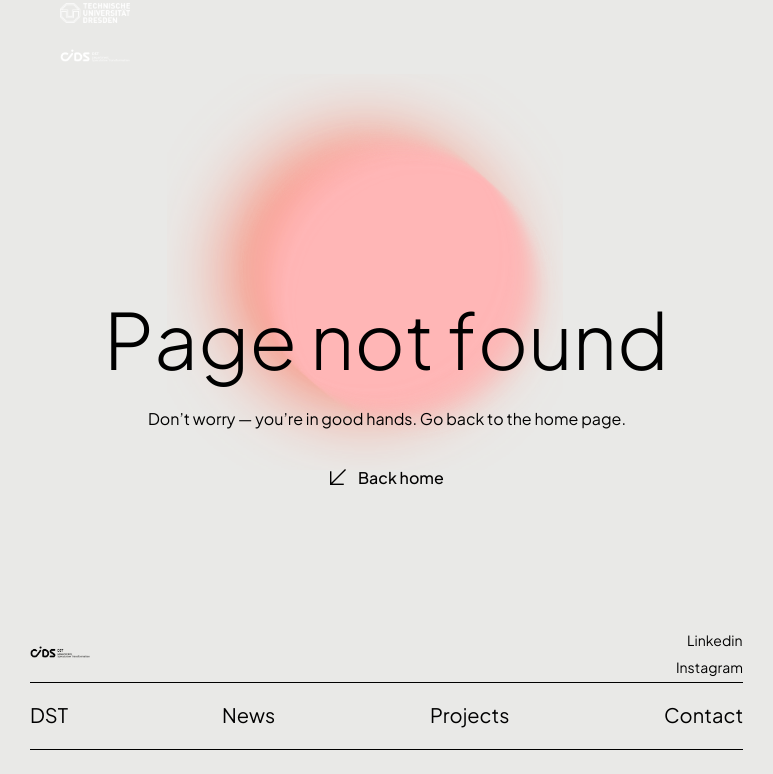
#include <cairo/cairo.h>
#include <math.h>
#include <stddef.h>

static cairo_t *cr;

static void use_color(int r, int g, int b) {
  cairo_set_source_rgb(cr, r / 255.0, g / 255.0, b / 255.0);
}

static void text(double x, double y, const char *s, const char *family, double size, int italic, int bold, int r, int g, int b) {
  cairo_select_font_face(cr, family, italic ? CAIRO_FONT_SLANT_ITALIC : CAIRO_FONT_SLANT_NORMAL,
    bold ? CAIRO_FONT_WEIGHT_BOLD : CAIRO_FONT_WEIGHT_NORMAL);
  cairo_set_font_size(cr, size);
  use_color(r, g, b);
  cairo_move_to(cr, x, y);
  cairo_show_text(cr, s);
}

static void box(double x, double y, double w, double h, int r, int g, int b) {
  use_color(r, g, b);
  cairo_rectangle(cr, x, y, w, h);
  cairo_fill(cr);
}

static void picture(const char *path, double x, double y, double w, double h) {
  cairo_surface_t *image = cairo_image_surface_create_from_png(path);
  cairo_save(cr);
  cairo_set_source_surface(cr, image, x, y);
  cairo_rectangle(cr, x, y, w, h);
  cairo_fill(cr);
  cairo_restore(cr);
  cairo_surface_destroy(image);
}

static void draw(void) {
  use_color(233, 233, 231);
  cairo_paint(cr);
  picture("img_01.png", 60, 3, 70, 20);
  picture("img_02.png", 60, 49, 70, 13);
  picture("img_03.png", 167, 74, 396, 396);
  picture("img_04.png", 330, 469, 16, 16);
  picture("img_05.png", 30, 646, 60, 12);
  box(30, 682, 713, 1, 0, 0, 0);
  box(30, 749, 713, 1, 0, 0, 0);
  text(104, 370, "Page not found", "Plus Jakarta Sans Light", 77.25, 0, 0, 0, 0, 0);
  text(148, 425, "Don’t worry — you’re in good hands. Go back to the home page.", "Plus Jakarta Sans", 16, 0, 0, 0, 0, 0);
  text(358, 484, "Back home", "Plus Jakarta Sans Medium", 16, 0, 0, 0, 0, 0);
  text(687, 646, "Linkedin", "Plus Jakarta Sans", 14, 0, 0, 0, 0, 0);
  text(676, 673, "Instagram", "Plus Jakarta Sans", 14, 0, 0, 0, 0, 0);
  text(30, 723, "DST", "Plus Jakarta Sans", 20, 0, 0, 0, 0, 0);
  text(222, 723, "News", "Plus Jakarta Sans", 20, 0, 0, 0, 0, 0);
  text(430, 723, "Projects", "Plus Jakarta Sans", 20, 0, 0, 0, 0, 0);
  text(664, 723, "Contact", "Plus Jakarta Sans", 20, 0, 0, 0, 0, 0);
}

int main(void) {
  cairo_surface_t *surface = cairo_image_surface_create(CAIRO_FORMAT_RGB24, 773, 774);
  cr = cairo_create(surface);
  cairo_font_options_t *options = cairo_font_options_create();
  cairo_font_options_set_hint_metrics(options, CAIRO_HINT_METRICS_OFF);
  cairo_font_options_set_hint_style(options, CAIRO_HINT_STYLE_NONE);
  cairo_set_font_options(cr, options);
  cairo_set_miter_limit(cr, 4);
  draw();
  cairo_surface_write_to_png(surface, "out.png");
  cairo_font_options_destroy(options);
  cairo_destroy(cr);
  cairo_surface_destroy(surface);
  return 0;
}
